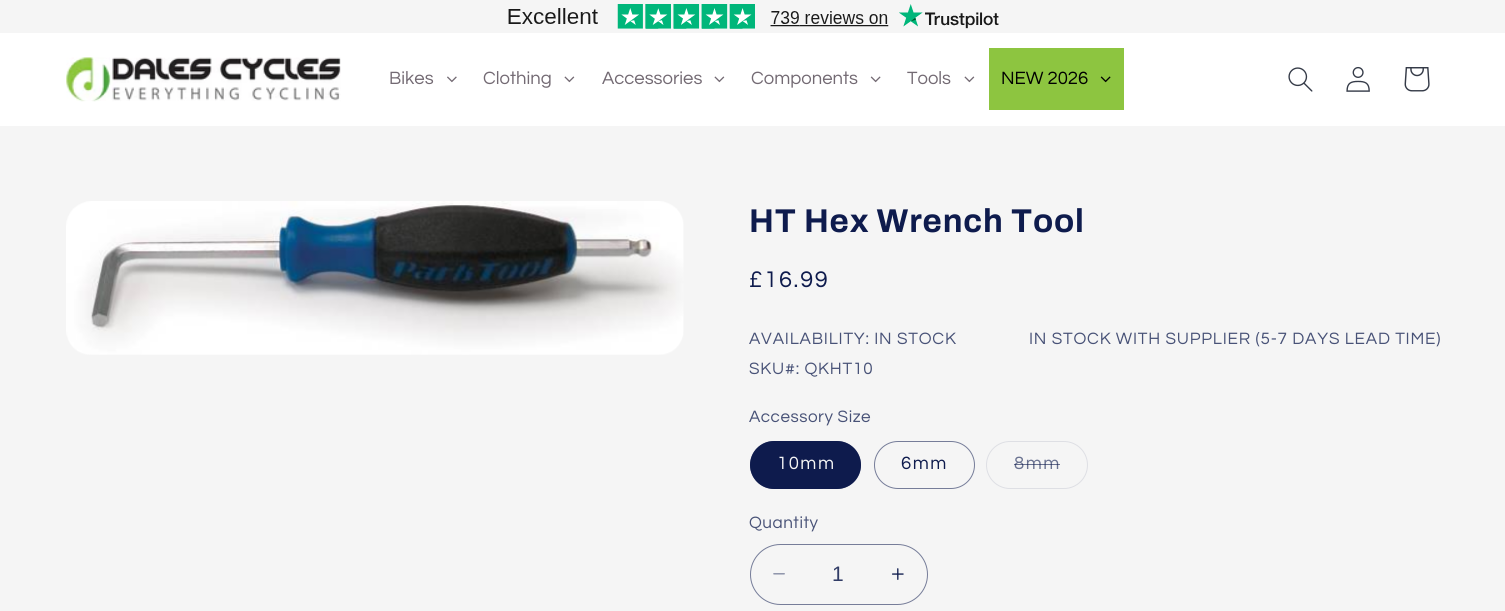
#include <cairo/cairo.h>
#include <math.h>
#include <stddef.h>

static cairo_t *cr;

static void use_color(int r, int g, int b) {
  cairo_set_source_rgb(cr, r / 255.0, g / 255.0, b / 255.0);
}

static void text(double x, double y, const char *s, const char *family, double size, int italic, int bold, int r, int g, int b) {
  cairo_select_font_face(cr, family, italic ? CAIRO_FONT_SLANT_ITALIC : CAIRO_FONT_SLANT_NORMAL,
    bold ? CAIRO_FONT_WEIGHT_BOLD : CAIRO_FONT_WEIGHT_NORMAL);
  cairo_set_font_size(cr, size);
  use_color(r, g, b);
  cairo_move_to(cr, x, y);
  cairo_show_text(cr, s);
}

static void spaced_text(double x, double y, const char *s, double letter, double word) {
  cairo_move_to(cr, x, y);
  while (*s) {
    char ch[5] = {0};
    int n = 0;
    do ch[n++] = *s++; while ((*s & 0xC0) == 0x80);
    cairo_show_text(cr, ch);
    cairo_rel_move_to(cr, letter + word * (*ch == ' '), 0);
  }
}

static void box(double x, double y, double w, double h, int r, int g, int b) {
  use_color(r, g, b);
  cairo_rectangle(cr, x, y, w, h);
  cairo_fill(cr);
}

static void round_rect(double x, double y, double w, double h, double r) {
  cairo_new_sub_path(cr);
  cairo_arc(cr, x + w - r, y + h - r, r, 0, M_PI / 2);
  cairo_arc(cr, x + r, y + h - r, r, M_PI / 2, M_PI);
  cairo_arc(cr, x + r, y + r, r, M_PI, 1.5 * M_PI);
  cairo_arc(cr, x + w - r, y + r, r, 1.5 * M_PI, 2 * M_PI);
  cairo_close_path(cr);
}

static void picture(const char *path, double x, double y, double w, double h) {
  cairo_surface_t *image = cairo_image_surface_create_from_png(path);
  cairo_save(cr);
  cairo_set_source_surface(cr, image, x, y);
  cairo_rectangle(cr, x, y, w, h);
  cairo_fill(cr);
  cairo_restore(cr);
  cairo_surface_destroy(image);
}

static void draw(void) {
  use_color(245, 245, 245);
  cairo_paint(cr);
  picture("img_01.png", 508, 4, 491, 25);
  box(0, 33, 1505, 93, 255, 255, 255);
  picture("img_02.png", 66, 57, 275, 45);
  picture("img_03.png", 447, 76, 10, 7);
  picture("img_04.png", 564, 76, 11, 7);
  picture("img_04.png", 714, 76, 11, 7);
  picture("img_05.png", 870, 76, 11, 7);
  picture("img_04.png", 964, 76, 11, 7);
  box(989, 48, 135, 62, 141, 197, 64);
  picture("img_06.png", 1100, 76, 11, 7);
  picture("img_07.png", 1288, 67, 25, 25);
  picture("img_08.png", 1346, 66, 24, 26);
  picture("img_09.png", 1404, 67, 26, 25);
  picture("img_10.png", 66, 201, 618, 154);
  use_color(14, 27, 77);
  round_rect(750, 441, 111, 48, 24);
  cairo_fill(cr);
  round_rect(750.5, 441.5, 110, 47, 23.5);
  cairo_set_source_rgba(cr, 0.055, 0.106, 0.302, 0.55);
  cairo_set_line_width(cr, 1);
  cairo_stroke(cr);
  round_rect(874.5, 441.5, 100, 47, 23.5);
  use_color(118, 125, 153);
  cairo_stroke(cr);
  round_rect(986.5, 441.5, 101, 47, 23.5);
  use_color(222, 223, 228);
  cairo_stroke(cr);
  picture("img_11.png", 773, 573, 12, 2);
  picture("img_12.png", 892, 568, 12, 12);
  round_rect(750.5, 544.5, 177, 60, 30);
  use_color(118, 125, 153);
  cairo_stroke(cr);
  text(389, 84, "Bikes", "Questrial", 18.5, 0, 0, 115, 106, 115);
  text(483, 84, "Clothing", "Questrial", 18.5, 0, 0, 115, 106, 115);
  text(602, 84, "Accessories", "Questrial", 18.5, 0, 0, 115, 106, 115);
  text(751, 84, "Components", "Questrial", 18.5, 0, 0, 115, 106, 115);
  text(907, 84, "Tools", "Questrial", 18.5, 0, 0, 115, 106, 115);
  text(1001, 84, "NEW 2026", "Questrial", 18.5, 0, 0, 0, 0, 0);
  cairo_select_font_face(cr, "Archivo", CAIRO_FONT_SLANT_NORMAL, CAIRO_FONT_WEIGHT_BOLD);
  cairo_set_font_size(cr, 33);
  use_color(14, 27, 77);
  spaced_text(749, 232, "HT Hex Wrench Tool", 0.8, 0);
  cairo_select_font_face(cr, "Questrial", CAIRO_FONT_SLANT_NORMAL, CAIRO_FONT_WEIGHT_NORMAL);
  cairo_set_font_size(cr, 23.5);
  spaced_text(749, 287, "£16.99", 1.75, 0);
  cairo_set_font_size(cr, 17.1);
  use_color(72, 82, 119);
  spaced_text(749, 344, "AVAILABILITY: IN STOCK", 0.8, 0);
  spaced_text(1029, 344, "IN STOCK WITH SUPPLIER (5-7 DAYS LEAD TIME)", 0.8, 0);
  spaced_text(749, 374, "SKU#: QKHT10", 0.8, 0);
  spaced_text(749, 422, "Accessory Size", 0.5, 0);
  cairo_set_font_size(cr, 18.5);
  use_color(245, 245, 245);
  spaced_text(777, 469, "10mm", 1.5, 0);
  use_color(14, 27, 77);
  spaced_text(901, 469, "6mm", 1.5, 0);
  use_color(106, 114, 144);
  spaced_text(1014, 469, "8mm", 1.5, 0);
  cairo_set_source_rgba(cr, 0.055, 0.106, 0.302, 0.6);
  cairo_rectangle(cr, 1014, 464, 46, 1);
  cairo_fill(cr);
  cairo_set_font_size(cr, 17.1);
  use_color(72, 82, 119);
  spaced_text(749, 528, "Quantity", 0.5, 0);
  text(832, 581, "1", "Liberation Sans", 21, 0, 0, 49, 60, 102);
}

int main(void) {
  cairo_surface_t *surface = cairo_image_surface_create(CAIRO_FORMAT_RGB24, 1505, 611);
  cr = cairo_create(surface);
  cairo_font_options_t *options = cairo_font_options_create();
  cairo_font_options_set_hint_metrics(options, CAIRO_HINT_METRICS_OFF);
  cairo_font_options_set_hint_style(options, CAIRO_HINT_STYLE_NONE);
  cairo_set_font_options(cr, options);
  cairo_set_miter_limit(cr, 4);
  draw();
  cairo_surface_write_to_png(surface, "out.png");
  cairo_font_options_destroy(options);
  cairo_destroy(cr);
  cairo_surface_destroy(surface);
  return 0;
}
